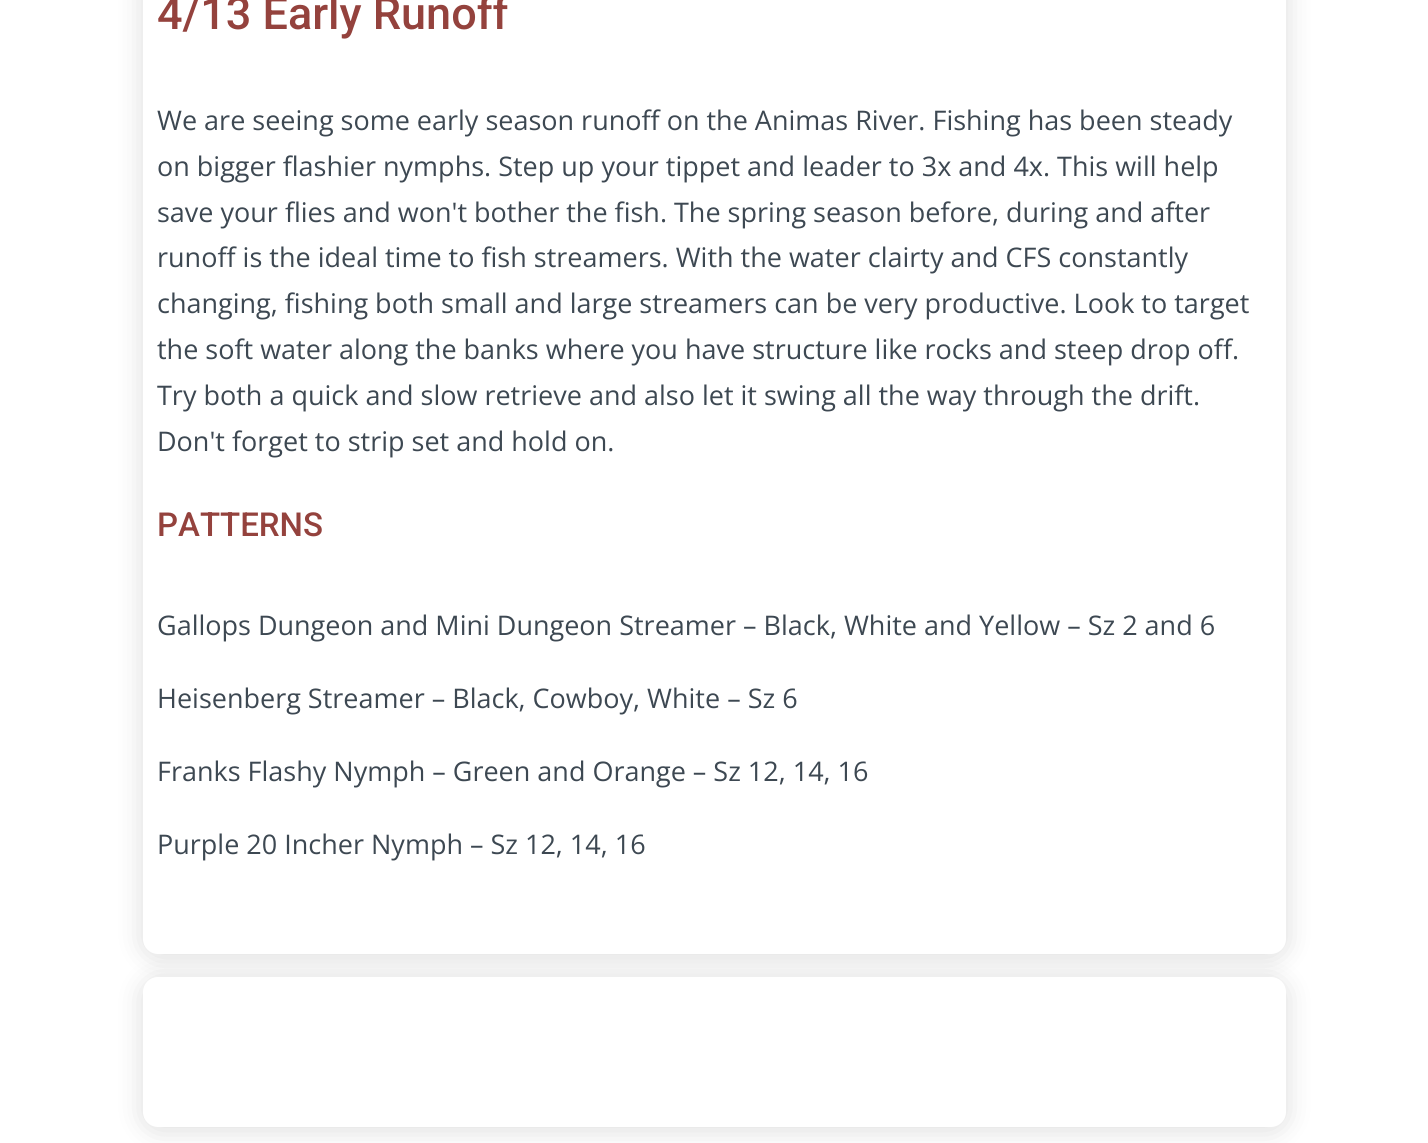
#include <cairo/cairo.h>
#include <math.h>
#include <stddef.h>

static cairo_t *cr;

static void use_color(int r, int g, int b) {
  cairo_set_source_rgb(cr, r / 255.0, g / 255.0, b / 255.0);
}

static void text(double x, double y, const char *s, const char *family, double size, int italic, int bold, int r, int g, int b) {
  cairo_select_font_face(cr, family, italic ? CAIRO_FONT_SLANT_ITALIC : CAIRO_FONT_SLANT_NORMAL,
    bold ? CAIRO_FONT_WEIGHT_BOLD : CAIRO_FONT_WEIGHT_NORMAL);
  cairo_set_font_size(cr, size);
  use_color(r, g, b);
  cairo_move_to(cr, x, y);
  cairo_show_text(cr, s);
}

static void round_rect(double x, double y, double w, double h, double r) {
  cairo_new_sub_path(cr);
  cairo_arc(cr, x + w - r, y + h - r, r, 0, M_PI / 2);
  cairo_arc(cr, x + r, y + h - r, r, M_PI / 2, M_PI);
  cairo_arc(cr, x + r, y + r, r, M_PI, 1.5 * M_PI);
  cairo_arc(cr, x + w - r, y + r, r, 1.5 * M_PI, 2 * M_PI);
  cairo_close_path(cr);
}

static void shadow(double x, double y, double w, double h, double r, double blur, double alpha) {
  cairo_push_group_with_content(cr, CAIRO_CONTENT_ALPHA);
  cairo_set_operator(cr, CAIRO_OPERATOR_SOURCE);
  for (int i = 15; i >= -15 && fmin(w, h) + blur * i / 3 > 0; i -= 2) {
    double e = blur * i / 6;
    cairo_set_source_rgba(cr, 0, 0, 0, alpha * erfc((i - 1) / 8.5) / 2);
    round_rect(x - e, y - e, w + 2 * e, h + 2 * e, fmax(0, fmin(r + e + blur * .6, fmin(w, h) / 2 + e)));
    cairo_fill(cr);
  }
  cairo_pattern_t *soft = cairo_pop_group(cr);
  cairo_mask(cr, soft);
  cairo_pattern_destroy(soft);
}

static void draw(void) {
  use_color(255, 255, 255);
  cairo_paint(cr);
  use_color(0, 0, 0);
  shadow(143, -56, 1143, 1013, 15, 13.5, 0.14);
  use_color(255, 255, 255);
  round_rect(143, -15, 1143, 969, 15);
  cairo_fill(cr);
  use_color(0, 0, 0);
  shadow(143, 980, 1143, 150, 15, 13.5, 0.14);
  use_color(255, 255, 255);
  round_rect(143, 977, 1143, 150, 15);
  cairo_fill(cr);
  text(157, 29, "4/13 Early Runoff", "Roboto Medium", 45, 0, 0, 148, 66, 61);
  text(157, 130, "We are seeing some early season runoff on the Animas River. Fishing has been steady", "Open Sans", 27, 0, 0, 61, 72, 82);
  text(157, 176, "on bigger flashier nymphs. Step up your tippet and leader to 3x and 4x. This will help", "Open Sans", 27, 0, 0, 61, 72, 82);
  text(157, 222, "save your flies and won't bother the fish. The spring season before, during and after", "Open Sans", 27, 0, 0, 61, 72, 82);
  text(157, 267, "runoff is the ideal time to fish streamers. With the water clairty and CFS constantly", "Open Sans", 27, 0, 0, 61, 72, 82);
  text(157, 313, "changing, fishing both small and large streamers can be very productive. Look to target", "Open Sans", 27, 0, 0, 61, 72, 82);
  text(157, 359, "the soft water along the banks where you have structure like rocks and steep drop off.", "Open Sans", 27, 0, 0, 61, 72, 82);
  text(157, 405, "Try both a quick and slow retrieve and also let it swing all the way through the drift.", "Open Sans", 27, 0, 0, 61, 72, 82);
  text(157, 451, "Don't forget to strip set and hold on.", "Open Sans", 27, 0, 0, 61, 72, 82);
  text(157, 536, "PATTERNS", "Roboto Medium", 33, 0, 0, 148, 66, 61);
  text(157, 635, "Gallops Dungeon and Mini Dungeon Streamer – Black, White and Yellow – Sz 2 and 6", "Open Sans", 27, 0, 0, 61, 72, 82);
  text(157, 708, "Heisenberg Streamer – Black, Cowboy, White – Sz 6", "Open Sans", 27, 0, 0, 61, 72, 82);
  text(157, 781, "Franks Flashy Nymph – Green and Orange – Sz 12, 14, 16", "Open Sans", 27, 0, 0, 61, 72, 82);
  text(157, 854, "Purple 20 Incher Nymph – Sz 12, 14, 16", "Open Sans", 27, 0, 0, 61, 72, 82);
}

int main(void) {
  cairo_surface_t *surface = cairo_image_surface_create(CAIRO_FORMAT_RGB24, 1428, 1143);
  cr = cairo_create(surface);
  cairo_font_options_t *options = cairo_font_options_create();
  cairo_font_options_set_hint_metrics(options, CAIRO_HINT_METRICS_OFF);
  cairo_font_options_set_hint_style(options, CAIRO_HINT_STYLE_NONE);
  cairo_set_font_options(cr, options);
  cairo_set_miter_limit(cr, 4);
  draw();
  cairo_surface_write_to_png(surface, "out.png");
  cairo_font_options_destroy(options);
  cairo_destroy(cr);
  cairo_surface_destroy(surface);
  return 0;
}
